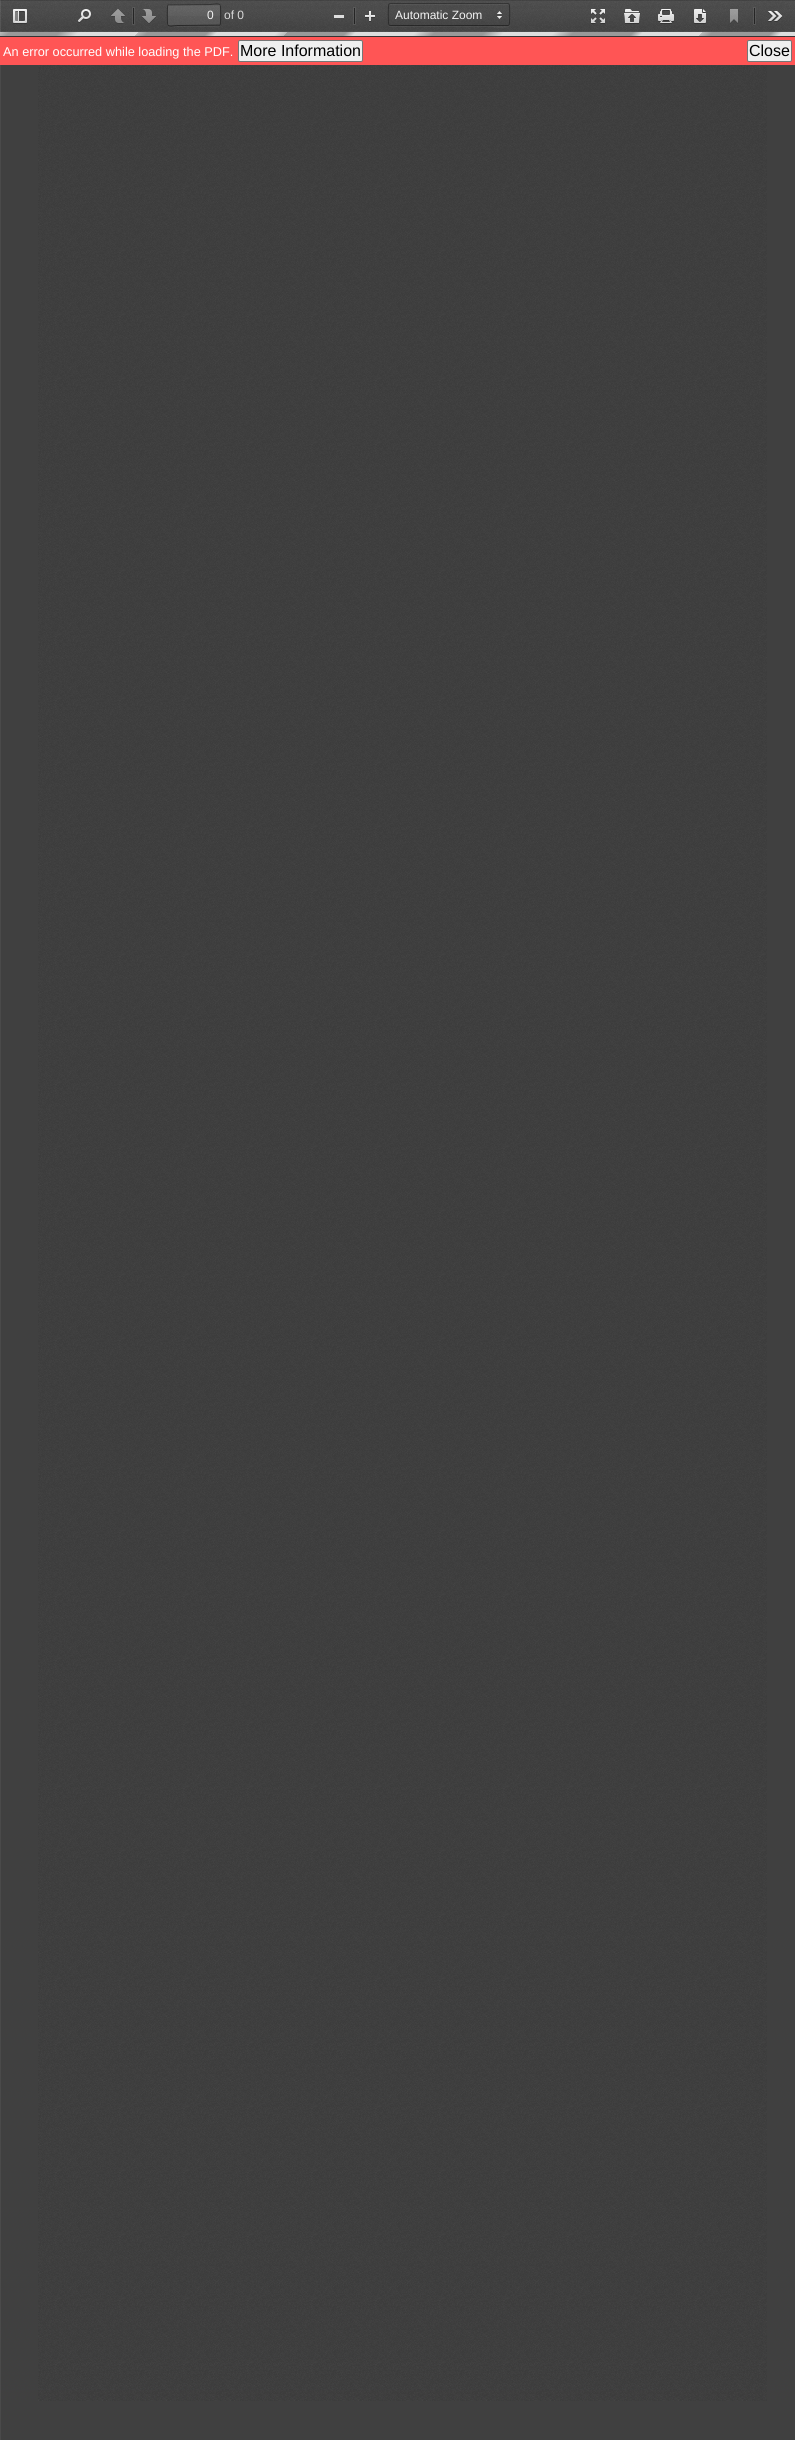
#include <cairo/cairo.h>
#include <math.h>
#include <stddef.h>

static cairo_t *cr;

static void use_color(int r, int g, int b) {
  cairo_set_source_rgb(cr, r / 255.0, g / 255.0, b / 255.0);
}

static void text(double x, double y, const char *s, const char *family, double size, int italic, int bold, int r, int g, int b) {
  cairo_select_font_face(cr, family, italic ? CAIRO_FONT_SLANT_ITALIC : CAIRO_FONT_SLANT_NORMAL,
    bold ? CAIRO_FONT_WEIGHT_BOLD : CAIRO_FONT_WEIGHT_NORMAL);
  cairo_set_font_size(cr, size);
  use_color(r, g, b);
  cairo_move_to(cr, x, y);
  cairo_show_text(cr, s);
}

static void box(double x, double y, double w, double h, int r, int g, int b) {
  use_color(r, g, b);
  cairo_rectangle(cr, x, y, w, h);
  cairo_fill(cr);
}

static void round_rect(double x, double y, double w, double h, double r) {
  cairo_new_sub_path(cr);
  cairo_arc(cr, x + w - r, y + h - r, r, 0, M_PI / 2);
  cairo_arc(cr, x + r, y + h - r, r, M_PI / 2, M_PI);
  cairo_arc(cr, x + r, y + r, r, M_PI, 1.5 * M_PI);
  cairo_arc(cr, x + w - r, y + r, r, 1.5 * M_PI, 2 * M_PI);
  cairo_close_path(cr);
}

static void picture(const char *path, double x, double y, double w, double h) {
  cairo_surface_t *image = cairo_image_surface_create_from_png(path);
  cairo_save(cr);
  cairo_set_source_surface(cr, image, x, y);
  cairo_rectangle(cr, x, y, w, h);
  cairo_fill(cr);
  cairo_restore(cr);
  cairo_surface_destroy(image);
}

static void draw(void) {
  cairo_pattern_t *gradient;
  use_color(64, 64, 64);
  cairo_paint(cr);
  picture("img_01.png", 38, 17, 729, 2384);
  picture("img_02.png", 0, 0, 795, 32);
  cairo_set_source_rgba(cr, 1, 1, 1, 0.05);
  cairo_rectangle(cr, 0, 31, 795, 1);
  cairo_fill(cr);
  cairo_set_source_rgba(cr, 0, 0, 0, 0.15);
  cairo_rectangle(cr, 0, 0, 795, 1);
  cairo_fill(cr);
  cairo_set_source_rgba(cr, 1, 1, 1, 0.08);
  cairo_rectangle(cr, 0, 0, 1, 32);
  cairo_fill(cr);
  picture("img_03.png", 13, 9, 14, 15);
  picture("img_04.png", 78, 9, 13, 14);
  picture("img_05.png", 111, 9, 14, 15);
  cairo_rectangle(cr, 132.5, 7.5, 2, 17);
  cairo_set_line_width(cr, 1);
  cairo_stroke(cr);
  cairo_set_source_rgba(cr, 0, 0, 0, 0.5);
  cairo_rectangle(cr, 133, 8, 1, 16);
  cairo_fill(cr);
  picture("img_06.png", 142, 9, 14, 15);
  cairo_set_source_rgba(cr, 1, 1, 1, 0.05);
  cairo_new_path(cr);
  cairo_move_to(cr, 167, 24);
  cairo_curve_to(cr, 167, 29, 173, 27, 177, 27);
  cairo_line_to(cr, 211, 27);
  cairo_curve_to(cr, 215, 27, 221, 29, 221, 24);
  cairo_line_to(cr, 220, 26);
  cairo_line_to(cr, 168, 26);
  cairo_close_path(cr);
  cairo_fill(cr);
  cairo_set_source_rgba(cr, 1, 1, 1, 0.09);
  cairo_rectangle(cr, 168, 5, 52, 20);
  cairo_fill(cr);
  gradient = cairo_pattern_create_linear(194, 5, 194, 25);
  cairo_pattern_add_color_stop_rgba(gradient, 0, 1, 1, 1, 0.05);
  cairo_pattern_add_color_stop_rgba(gradient, 1, 1, 1, 1, 0);
  cairo_set_source(cr, gradient);
  cairo_pattern_destroy(gradient);
  cairo_rectangle(cr, 168, 5, 52, 11);
  cairo_fill(cr);
  cairo_set_source_rgba(cr, 0, 0, 0, 0.05);
  cairo_new_path(cr);
  cairo_move_to(cr, 169, 6);
  cairo_line_to(cr, 219, 6);
  cairo_curve_to(cr, 220, 6, 220, 6, 220, 7);
  cairo_curve_to(cr, 220, 3, 215, 5, 211, 5);
  cairo_line_to(cr, 177, 5);
  cairo_curve_to(cr, 173, 5, 168, 3, 168, 7);
  cairo_curve_to(cr, 168, 6, 168, 6, 169, 6);
  cairo_close_path(cr);
  cairo_fill(cr);
  cairo_new_path(cr);
  cairo_move_to(cr, 168, 5);
  cairo_line_to(cr, 210.5, 4.5);
  cairo_curve_to(cr, 214, 4.5, 218, 2.5, 220, 5);
  cairo_set_source_rgba(cr, 0, 0, 0, 0.32);
  cairo_stroke(cr);
  cairo_new_path(cr);
  cairo_move_to(cr, 220, 5);
  cairo_curve_to(cr, 221, 5.5, 221, 24.5, 220, 25);
  cairo_set_source_rgba(cr, 0, 0, 0, 0.38);
  cairo_stroke(cr);
  cairo_new_path(cr);
  cairo_move_to(cr, 220, 25);
  cairo_line_to(cr, 177.5, 25.5);
  cairo_curve_to(cr, 174, 25.5, 170, 27.5, 168, 25);
  cairo_set_source_rgba(cr, 0, 0, 0, 0.42);
  cairo_stroke(cr);
  cairo_new_path(cr);
  cairo_move_to(cr, 168, 25);
  cairo_curve_to(cr, 167, 24.5, 167, 5.5, 168, 5);
  cairo_set_source_rgba(cr, 0, 0, 0, 0.38);
  cairo_stroke(cr);
  cairo_set_source_rgba(cr, 1, 1, 1, 0.82);
  cairo_rectangle(cr, 334, 15, 10, 3);
  cairo_fill(cr);
  cairo_rectangle(cr, 353.5, 7.5, 2, 17);
  cairo_set_source_rgba(cr, 1, 1, 1, 0.08);
  cairo_stroke(cr);
  cairo_set_source_rgba(cr, 0, 0, 0, 0.5);
  cairo_rectangle(cr, 354, 8, 1, 16);
  cairo_fill(cr);
  picture("img_07.png", 365, 11, 10, 11);
  cairo_set_source_rgba(cr, 1, 1, 1, 0.05);
  cairo_new_path(cr);
  cairo_move_to(cr, 388, 24);
  cairo_curve_to(cr, 388, 25, 388, 26, 389, 27);
  cairo_line_to(cr, 488, 27);
  cairo_curve_to(cr, 494, 27, 510, 31, 510, 24);
  cairo_curve_to(cr, 510, 25, 509, 26, 508, 26);
  cairo_line_to(cr, 390, 26);
  cairo_curve_to(cr, 389, 26, 388, 25, 388, 24);
  cairo_close_path(cr);
  cairo_fill(cr);
  picture("img_08.png", 497, 11, 5, 8);
  cairo_new_path(cr);
  cairo_move_to(cr, 390, 5);
  cairo_line_to(cr, 509, 5);
  cairo_line_to(cr, 509, 6);
  cairo_curve_to(cr, 509, 5, 509, 4, 508, 4);
  cairo_line_to(cr, 390, 4);
  cairo_line_to(cr, 389, 6);
  cairo_curve_to(cr, 389, 5, 389, 5, 390, 5);
  cairo_close_path(cr);
  cairo_fill(cr);
  cairo_new_path(cr);
  cairo_move_to(cr, 389, 4);
  cairo_line_to(cr, 390, 3.5);
  cairo_line_to(cr, 508, 3.5);
  cairo_line_to(cr, 509, 4);
  cairo_set_source_rgba(cr, 0, 0, 0, 0.32);
  cairo_stroke(cr);
  cairo_new_path(cr);
  cairo_move_to(cr, 509, 4);
  cairo_curve_to(cr, 510, 5, 510, 24, 509, 25);
  cairo_set_source_rgba(cr, 0, 0, 0, 0.38);
  cairo_stroke(cr);
  cairo_new_path(cr);
  cairo_move_to(cr, 509, 25);
  cairo_line_to(cr, 508, 25.5);
  cairo_line_to(cr, 390, 25.5);
  cairo_line_to(cr, 389, 25);
  cairo_set_source_rgba(cr, 0, 0, 0, 0.42);
  cairo_stroke(cr);
  cairo_new_path(cr);
  cairo_move_to(cr, 389, 25);
  cairo_curve_to(cr, 388, 24, 388, 5, 389, 4);
  cairo_set_source_rgba(cr, 0, 0, 0, 0.38);
  cairo_stroke(cr);
  picture("img_09.png", 591, 9, 14, 15);
  picture("img_10.png", 624, 9, 16, 15);
  picture("img_11.png", 658, 9, 16, 15);
  picture("img_12.png", 694, 9, 12, 15);
  picture("img_13.png", 730, 9, 8, 15);
  cairo_rectangle(cr, 753.5, 7.5, 2, 17);
  cairo_set_source_rgba(cr, 1, 1, 1, 0.08);
  cairo_stroke(cr);
  cairo_set_source_rgba(cr, 0, 0, 0, 0.5);
  cairo_rectangle(cr, 754, 8, 1, 16);
  cairo_fill(cr);
  picture("img_14.png", 768, 11, 15, 11);
  box(0, 36, 795, 1, 51, 51, 51);
  gradient = cairo_pattern_create_linear(235, -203, 730, 292);
  cairo_pattern_add_color_stop_rgba(gradient, 0, 0.733, 0.733, 0.733, 1);
  cairo_pattern_add_color_stop_rgba(gradient, 0.01, 0.6, 0.6, 0.6, 1);
  cairo_pattern_add_color_stop_rgba(gradient, 0.06, 0.6, 0.6, 0.6, 1);
  cairo_pattern_add_color_stop_rgba(gradient, 0.08, 0.867, 0.867, 0.867, 1);
  cairo_pattern_add_color_stop_rgba(gradient, 0.14, 0.867, 0.867, 0.867, 1);
  cairo_pattern_add_color_stop_rgba(gradient, 0.14, 0.733, 0.733, 0.733, 1);
  cairo_pattern_add_color_stop_rgba(gradient, 0.15, 0.6, 0.6, 0.6, 1);
  cairo_pattern_add_color_stop_rgba(gradient, 0.21, 0.6, 0.6, 0.6, 1);
  cairo_pattern_add_color_stop_rgba(gradient, 0.22, 0.867, 0.867, 0.867, 1);
  cairo_pattern_add_color_stop_rgba(gradient, 0.28, 0.867, 0.867, 0.867, 1);
  cairo_pattern_add_color_stop_rgba(gradient, 0.29, 0.733, 0.733, 0.733, 1);
  cairo_pattern_add_color_stop_rgba(gradient, 0.29, 0.6, 0.6, 0.6, 1);
  cairo_pattern_add_color_stop_rgba(gradient, 0.35, 0.6, 0.6, 0.6, 1);
  cairo_pattern_add_color_stop_rgba(gradient, 0.36, 0.867, 0.867, 0.867, 1);
  cairo_pattern_add_color_stop_rgba(gradient, 0.42, 0.867, 0.867, 0.867, 1);
  cairo_pattern_add_color_stop_rgba(gradient, 0.43, 0.733, 0.733, 0.733, 1);
  cairo_pattern_add_color_stop_rgba(gradient, 0.44, 0.6, 0.6, 0.6, 1);
  cairo_pattern_add_color_stop_rgba(gradient, 0.49, 0.6, 0.6, 0.6, 1);
  cairo_pattern_add_color_stop_rgba(gradient, 0.51, 0.867, 0.867, 0.867, 1);
  cairo_pattern_add_color_stop_rgba(gradient, 0.56, 0.867, 0.867, 0.867, 1);
  cairo_pattern_add_color_stop_rgba(gradient, 0.57, 0.733, 0.733, 0.733, 1);
  cairo_pattern_add_color_stop_rgba(gradient, 0.58, 0.6, 0.6, 0.6, 1);
  cairo_pattern_add_color_stop_rgba(gradient, 0.64, 0.6, 0.6, 0.6, 1);
  cairo_pattern_add_color_stop_rgba(gradient, 0.65, 0.867, 0.867, 0.867, 1);
  cairo_pattern_add_color_stop_rgba(gradient, 0.71, 0.867, 0.867, 0.867, 1);
  cairo_pattern_add_color_stop_rgba(gradient, 0.71, 0.733, 0.733, 0.733, 1);
  cairo_pattern_add_color_stop_rgba(gradient, 0.72, 0.6, 0.6, 0.6, 1);
  cairo_pattern_add_color_stop_rgba(gradient, 0.78, 0.6, 0.6, 0.6, 1);
  cairo_pattern_add_color_stop_rgba(gradient, 0.79, 0.867, 0.867, 0.867, 1);
  cairo_pattern_add_color_stop_rgba(gradient, 0.85, 0.867, 0.867, 0.867, 1);
  cairo_pattern_add_color_stop_rgba(gradient, 0.86, 0.733, 0.733, 0.733, 1);
  cairo_pattern_add_color_stop_rgba(gradient, 0.86, 0.733, 0.733, 0.733, 1);
  cairo_pattern_add_color_stop_rgba(gradient, 0.86, 0.6, 0.6, 0.6, 1);
  cairo_pattern_add_color_stop_rgba(gradient, 0.92, 0.6, 0.6, 0.6, 1);
  cairo_pattern_add_color_stop_rgba(gradient, 0.94, 0.867, 0.867, 0.867, 1);
  cairo_pattern_add_color_stop_rgba(gradient, 0.99, 0.867, 0.867, 0.867, 1);
  cairo_pattern_add_color_stop_rgba(gradient, 1, 0.733, 0.733, 0.733, 1);
  cairo_set_source(cr, gradient);
  cairo_pattern_destroy(gradient);
  cairo_rectangle(cr, 0, 32, 795, 4);
  cairo_fill(cr);
  box(0, 37, 795, 28, 255, 85, 85);
  use_color(239, 239, 239);
  round_rect(238.5, 40.5, 124, 21, 1.5);
  cairo_fill_preserve(cr);
  use_color(118, 118, 118);
  cairo_stroke(cr);
  use_color(239, 239, 239);
  round_rect(747.5, 40.5, 44, 21, 1.5);
  cairo_fill_preserve(cr);
  use_color(118, 118, 118);
  cairo_stroke(cr);
  box(0, 65, 1, 2375, 74, 74, 74);
  text(207, 19, "0", "Liberation Sans", 12, 0, 0, 242, 242, 242);
  text(224, 19, "of 0", "Liberation Sans", 12, 0, 0, 217, 217, 217);
  text(395, 19, "Automatic Zoom", "Liberation Sans", 12, 0, 0, 242, 242, 242);
  text(3, 56, "An error occurred while loading the PDF.", "Liberation Sans", 12.75, 0, 0, 255, 255, 255);
  text(240, 56, "More Information", "Liberation Sans", 16, 0, 0, 0, 0, 0);
  text(749, 56, "Close", "Liberation Sans", 16, 0, 0, 0, 0, 0);
}

int main(void) {
  cairo_surface_t *surface = cairo_image_surface_create(CAIRO_FORMAT_RGB24, 795, 2440);
  cr = cairo_create(surface);
  cairo_font_options_t *options = cairo_font_options_create();
  cairo_font_options_set_hint_metrics(options, CAIRO_HINT_METRICS_OFF);
  cairo_font_options_set_hint_style(options, CAIRO_HINT_STYLE_NONE);
  cairo_set_font_options(cr, options);
  cairo_set_miter_limit(cr, 4);
  draw();
  cairo_surface_write_to_png(surface, "out.png");
  cairo_font_options_destroy(options);
  cairo_destroy(cr);
  cairo_surface_destroy(surface);
  return 0;
}
